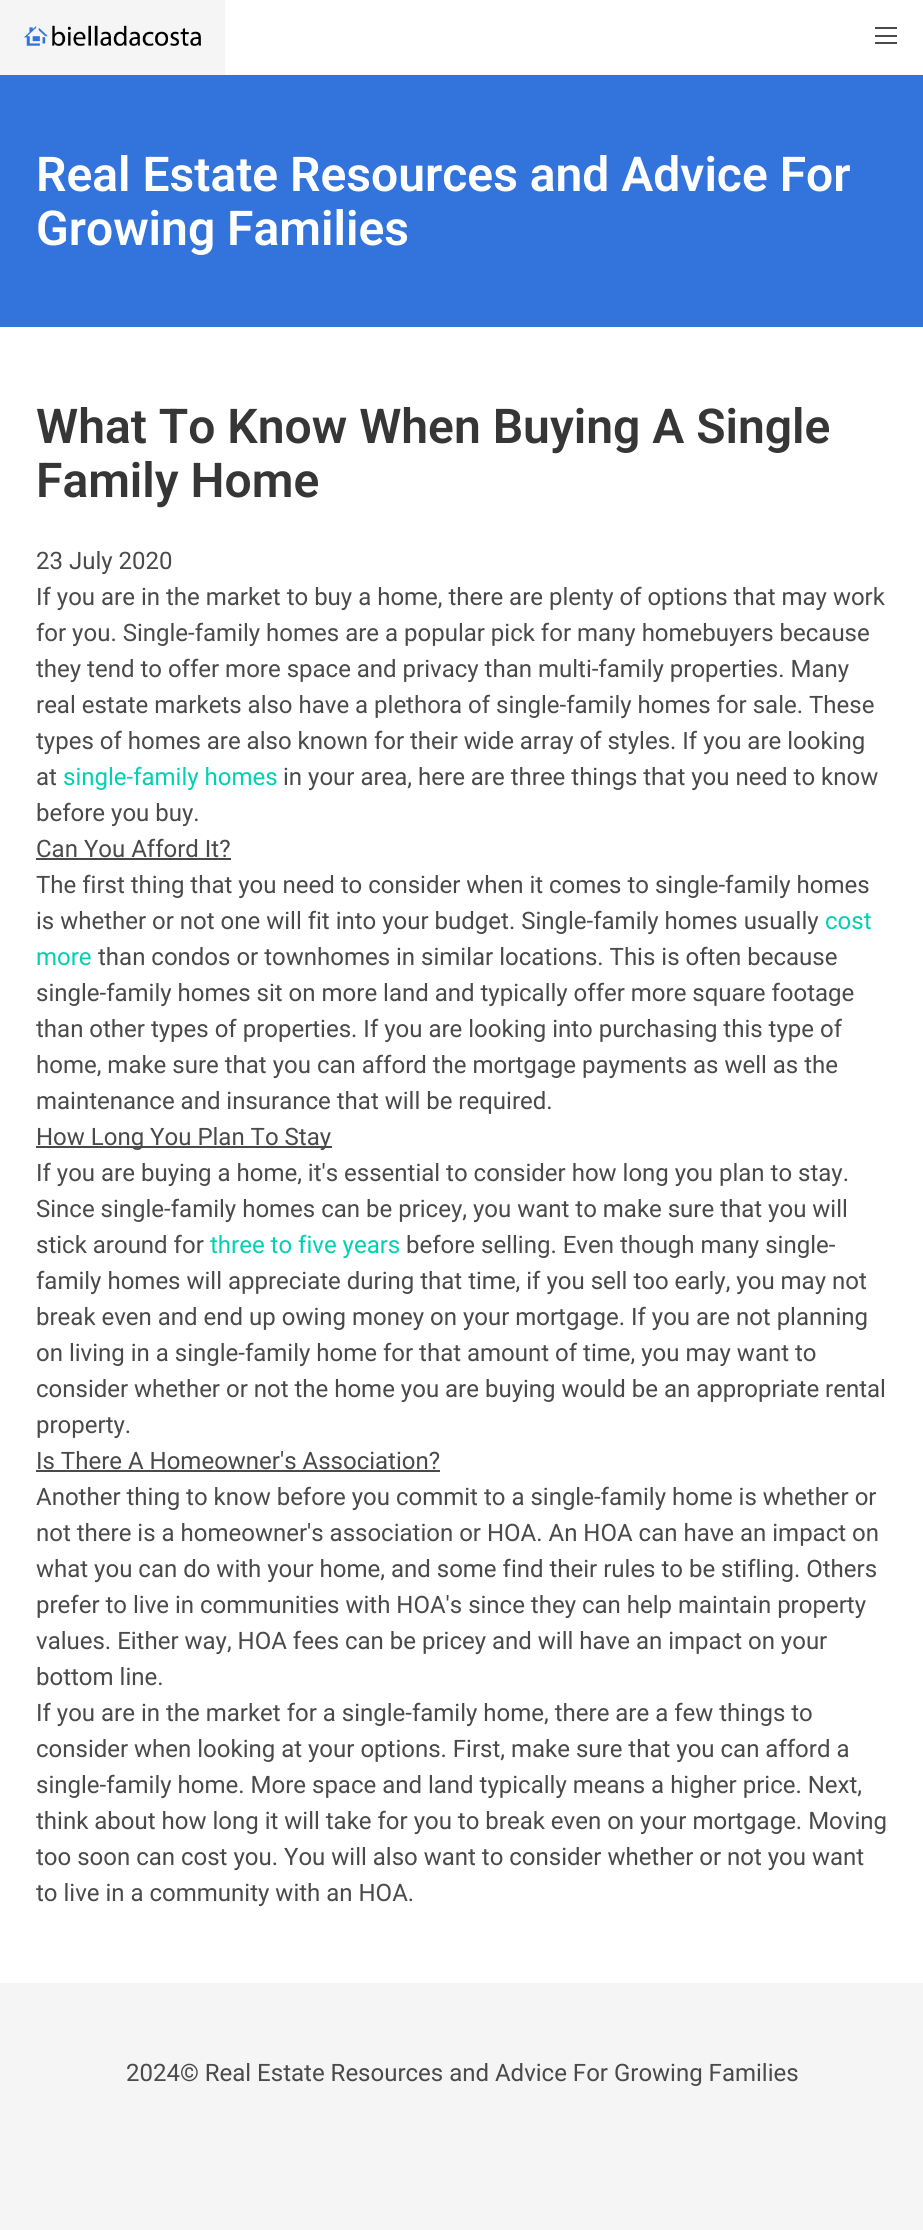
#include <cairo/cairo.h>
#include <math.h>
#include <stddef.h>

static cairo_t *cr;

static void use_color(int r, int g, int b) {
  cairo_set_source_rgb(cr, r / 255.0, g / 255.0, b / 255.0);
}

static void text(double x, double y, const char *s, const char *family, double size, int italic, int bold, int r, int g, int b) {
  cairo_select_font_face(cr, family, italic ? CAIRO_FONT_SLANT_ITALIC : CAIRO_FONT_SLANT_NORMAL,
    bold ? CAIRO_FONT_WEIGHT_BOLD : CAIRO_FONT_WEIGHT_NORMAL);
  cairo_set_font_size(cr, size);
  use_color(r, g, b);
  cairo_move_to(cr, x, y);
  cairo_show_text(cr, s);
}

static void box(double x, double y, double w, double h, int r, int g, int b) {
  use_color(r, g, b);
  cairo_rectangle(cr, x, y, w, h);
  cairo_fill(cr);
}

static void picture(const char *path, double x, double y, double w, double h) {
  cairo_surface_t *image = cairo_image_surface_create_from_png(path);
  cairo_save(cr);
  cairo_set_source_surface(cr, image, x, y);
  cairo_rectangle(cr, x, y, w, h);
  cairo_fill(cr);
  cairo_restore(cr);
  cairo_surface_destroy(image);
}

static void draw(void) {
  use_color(255, 255, 255);
  cairo_paint(cr);
  box(0, 0, 225, 75, 245, 245, 245);
  picture("img_01.png", 24, 25, 177, 21);
  box(875, 27, 22, 2, 74, 74, 74);
  box(875, 35, 22, 2, 74, 74, 74);
  box(875, 42, 22, 2, 74, 74, 74);
  box(0, 75, 923, 252, 50, 115, 220);
  box(36, 858, 195, 2, 74, 74, 74);
  box(36, 1146, 296, 2, 74, 74, 74);
  box(36, 1470, 404, 2, 74, 74, 74);
  box(0, 1983, 923, 247, 245, 245, 245);
  text(36, 191, "Real Estate Resources and Advice For", "Roboto SemiBold", 48, 0, 0, 255, 255, 255);
  text(36, 245, "Growing Families", "Roboto SemiBold", 48, 0, 0, 255, 255, 255);
  text(36, 443, "What To Know When Buying A Single", "Roboto SemiBold", 48, 0, 0, 54, 54, 54);
  text(36, 497, "Family Home", "Roboto SemiBold", 48, 0, 0, 54, 54, 54);
  text(36, 569, "23 July 2020", "Roboto", 24, 0, 0, 74, 74, 74);
  text(36, 605, "If you are in the market to buy a home, there are plenty of options that may work", "Roboto", 24, 0, 0, 74, 74, 74);
  text(36, 641, "for you. Single-family homes are a popular pick for many homebuyers because", "Roboto", 24, 0, 0, 74, 74, 74);
  text(36, 677, "they tend to offer more space and privacy than multi-family properties. Many", "Roboto", 24, 0, 0, 74, 74, 74);
  text(36, 713, "real estate markets also have a plethora of single-family homes for sale. These", "Roboto", 24, 0, 0, 74, 74, 74);
  text(36, 749, "types of homes are also known for their wide array of styles. If you are looking", "Roboto", 24, 0, 0, 74, 74, 74);
  text(36, 785, "at", "Roboto", 24, 0, 0, 74, 74, 74);
  text(63, 785, "single-family homes", "Roboto", 24, 0, 0, 0, 209, 178);
  text(283, 785, "in your area, here are three things that you need to know", "Roboto", 24, 0, 0, 74, 74, 74);
  text(36, 821, "before you buy.", "Roboto", 24, 0, 0, 74, 74, 74);
  text(36, 857, "Can You Afford It?", "Roboto", 24, 0, 0, 74, 74, 74);
  text(36, 893, "The first thing that you need to consider when it comes to single-family homes", "Roboto", 24, 0, 0, 74, 74, 74);
  text(36, 929, "is whether or not one will fit into your budget. Single-family homes usually", "Roboto", 24, 0, 0, 74, 74, 74);
  text(825, 929, "cost", "Roboto", 24, 0, 0, 0, 209, 178);
  text(36, 965, "more", "Roboto", 24, 0, 0, 0, 209, 178);
  text(98, 965, "than condos or townhomes in similar locations. This is often because", "Roboto", 24, 0, 0, 74, 74, 74);
  text(36, 1001, "single-family homes sit on more land and typically offer more square footage", "Roboto", 24, 0, 0, 74, 74, 74);
  text(36, 1037, "than other types of properties. If you are looking into purchasing this type of", "Roboto", 24, 0, 0, 74, 74, 74);
  text(36, 1073, "home, make sure that you can afford the mortgage payments as well as the", "Roboto", 24, 0, 0, 74, 74, 74);
  text(36, 1109, "maintenance and insurance that will be required.", "Roboto", 24, 0, 0, 74, 74, 74);
  text(36, 1145, "How Long You Plan To Stay", "Roboto", 24, 0, 0, 74, 74, 74);
  text(36, 1181, "If you are buying a home, it's essential to consider how long you plan to stay.", "Roboto", 24, 0, 0, 74, 74, 74);
  text(36, 1217, "Since single-family homes can be pricey, you want to make sure that you will", "Roboto", 24, 0, 0, 74, 74, 74);
  text(36, 1253, "stick around for", "Roboto", 24, 0, 0, 74, 74, 74);
  text(210, 1253, "three to five years", "Roboto", 24, 0, 0, 0, 209, 178);
  text(406, 1253, "before selling. Even though many single-", "Roboto", 24, 0, 0, 74, 74, 74);
  text(36, 1289, "family homes will appreciate during that time, if you sell too early, you may not", "Roboto", 24, 0, 0, 74, 74, 74);
  text(36, 1325, "break even and end up owing money on your mortgage. If you are not planning", "Roboto", 24, 0, 0, 74, 74, 74);
  text(36, 1361, "on living in a single-family home for that amount of time, you may want to", "Roboto", 24, 0, 0, 74, 74, 74);
  text(36, 1397, "consider whether or not the home you are buying would be an appropriate rental", "Roboto", 24, 0, 0, 74, 74, 74);
  text(36, 1433, "property.", "Roboto", 24, 0, 0, 74, 74, 74);
  text(36, 1469, "Is There A Homeowner's Association?", "Roboto", 24, 0, 0, 74, 74, 74);
  text(36, 1505, "Another thing to know before you commit to a single-family home is whether or", "Roboto", 24, 0, 0, 74, 74, 74);
  text(36, 1541, "not there is a homeowner's association or HOA. An HOA can have an impact on", "Roboto", 24, 0, 0, 74, 74, 74);
  text(36, 1577, "what you can do with your home, and some find their rules to be stifling. Others", "Roboto", 24, 0, 0, 74, 74, 74);
  text(36, 1613, "prefer to live in communities with HOA's since they can help maintain property", "Roboto", 24, 0, 0, 74, 74, 74);
  text(36, 1649, "values. Either way, HOA fees can be pricey and will have an impact on your", "Roboto", 24, 0, 0, 74, 74, 74);
  text(36, 1685, "bottom line.", "Roboto", 24, 0, 0, 74, 74, 74);
  text(36, 1721, "If you are in the market for a single-family home, there are a few things to", "Roboto", 24, 0, 0, 74, 74, 74);
  text(36, 1757, "consider when looking at your options. First, make sure that you can afford a", "Roboto", 24, 0, 0, 74, 74, 74);
  text(36, 1793, "single-family home. More space and land typically means a higher price. Next,", "Roboto", 24, 0, 0, 74, 74, 74);
  text(36, 1829, "think about how long it will take for you to break even on your mortgage. Moving", "Roboto", 24, 0, 0, 74, 74, 74);
  text(36, 1865, "too soon can cost you. You will also want to consider whether or not you want", "Roboto", 24, 0, 0, 74, 74, 74);
  text(36, 1901, "to live in a community with an HOA.", "Roboto", 24, 0, 0, 74, 74, 74);
  text(126, 2081, "2024© Real Estate Resources and Advice For Growing Families", "Roboto", 24, 0, 0, 74, 74, 74);
}

int main(void) {
  cairo_surface_t *surface = cairo_image_surface_create(CAIRO_FORMAT_RGB24, 923, 2230);
  cr = cairo_create(surface);
  cairo_font_options_t *options = cairo_font_options_create();
  cairo_font_options_set_hint_metrics(options, CAIRO_HINT_METRICS_OFF);
  cairo_font_options_set_hint_style(options, CAIRO_HINT_STYLE_NONE);
  cairo_set_font_options(cr, options);
  cairo_set_miter_limit(cr, 4);
  draw();
  cairo_surface_write_to_png(surface, "out.png");
  cairo_font_options_destroy(options);
  cairo_destroy(cr);
  cairo_surface_destroy(surface);
  return 0;
}
